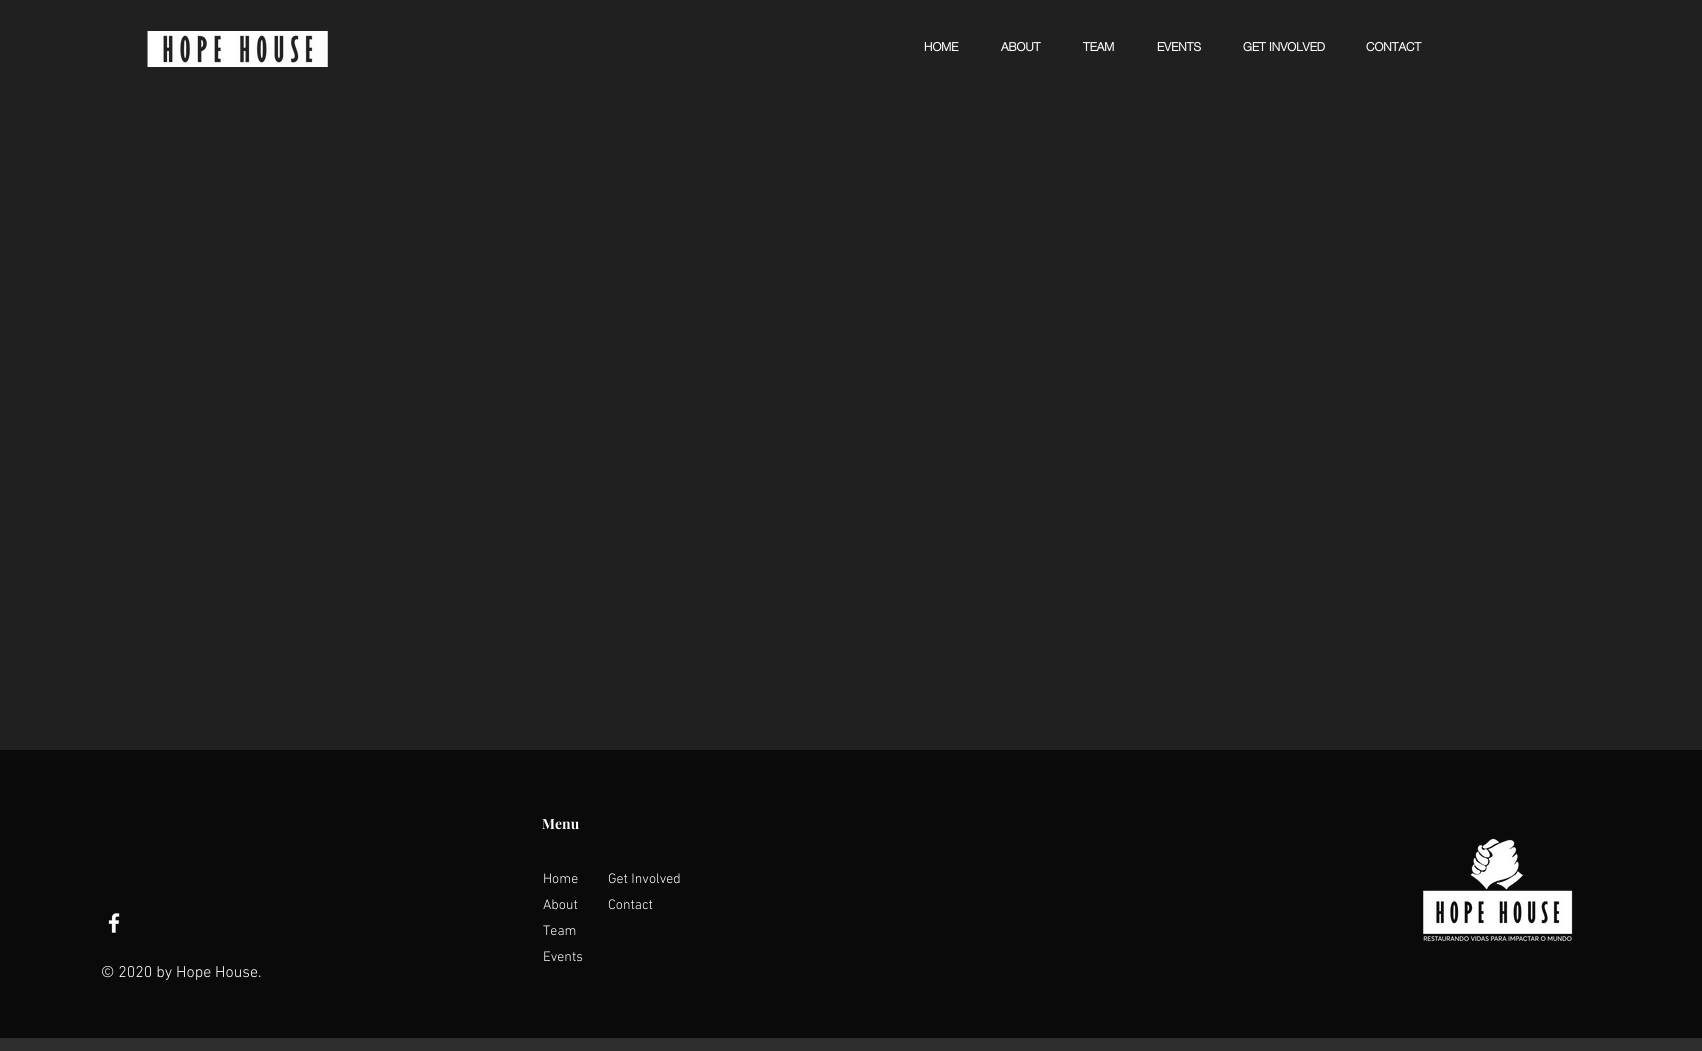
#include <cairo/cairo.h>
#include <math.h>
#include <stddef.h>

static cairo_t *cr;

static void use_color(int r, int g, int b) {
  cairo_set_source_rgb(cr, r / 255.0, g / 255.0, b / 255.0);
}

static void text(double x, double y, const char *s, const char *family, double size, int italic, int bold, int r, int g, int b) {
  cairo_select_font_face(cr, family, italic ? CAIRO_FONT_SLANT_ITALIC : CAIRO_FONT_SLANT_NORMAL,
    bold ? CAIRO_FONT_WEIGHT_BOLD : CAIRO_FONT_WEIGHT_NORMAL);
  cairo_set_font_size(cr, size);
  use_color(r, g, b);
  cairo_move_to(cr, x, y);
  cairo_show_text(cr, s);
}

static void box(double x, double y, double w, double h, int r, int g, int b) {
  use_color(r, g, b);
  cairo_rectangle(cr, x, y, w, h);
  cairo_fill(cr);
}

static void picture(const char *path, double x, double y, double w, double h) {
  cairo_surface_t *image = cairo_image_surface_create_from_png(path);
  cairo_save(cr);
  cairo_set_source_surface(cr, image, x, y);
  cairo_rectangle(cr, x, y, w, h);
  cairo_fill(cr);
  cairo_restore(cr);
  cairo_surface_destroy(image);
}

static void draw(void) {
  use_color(45, 46, 45);
  cairo_paint(cr);
  box(0, 0, 1702, 750, 31, 32, 31);
  picture("img_01.png", 147, 31, 181, 36);
  box(0, 750, 1702, 288, 10, 10, 10);
  picture("img_02.png", 1423, 838, 150, 104);
  picture("img_03.png", 108, 913, 12, 20);
  text(924, 51, "HOME", "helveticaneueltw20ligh", 12, 0, 1, 255, 255, 255);
  text(1001, 51, "ABOUT", "helveticaneueltw20ligh", 12, 0, 1, 255, 255, 255);
  text(1083, 51, "TEAM", "helveticaneueltw20ligh", 12, 0, 1, 255, 255, 255);
  text(1157, 51, "EVENTS", "helveticaneueltw20ligh", 12, 0, 1, 255, 255, 255);
  text(1243, 51, "GET INVOLVED", "helveticaneueltw20ligh", 12, 0, 1, 255, 255, 255);
  text(1366, 51, "CONTACT", "helveticaneueltw20ligh", 12, 0, 1, 255, 255, 255);
  text(542, 829, "Menu", "Playfair Display", 14, 0, 1, 255, 255, 255);
  text(543, 883, "Home", "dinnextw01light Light", 14, 0, 0, 255, 255, 255);
  text(608, 883, "Get Involved", "dinnextw01light Light", 14, 0, 0, 255, 255, 255);
  text(543, 909, "About", "dinnextw01light Light", 14, 0, 0, 255, 255, 255);
  text(608, 909, "Contact", "dinnextw01light Light", 14, 0, 0, 255, 255, 255);
  text(543, 935, "Team", "dinnextw01light Light", 14, 0, 0, 255, 255, 255);
  text(543, 961, "Events", "dinnextw01light Light", 14, 0, 0, 255, 255, 255);
  text(101, 977, "© 2020 by Hope House.", "dinnextw01light Light", 16, 0, 0, 255, 255, 255);
}

int main(void) {
  cairo_surface_t *surface = cairo_image_surface_create(CAIRO_FORMAT_RGB24, 1702, 1051);
  cr = cairo_create(surface);
  cairo_font_options_t *options = cairo_font_options_create();
  cairo_font_options_set_hint_metrics(options, CAIRO_HINT_METRICS_OFF);
  cairo_font_options_set_hint_style(options, CAIRO_HINT_STYLE_NONE);
  cairo_set_font_options(cr, options);
  cairo_set_miter_limit(cr, 4);
  draw();
  cairo_surface_write_to_png(surface, "out.png");
  cairo_font_options_destroy(options);
  cairo_destroy(cr);
  cairo_surface_destroy(surface);
  return 0;
}
